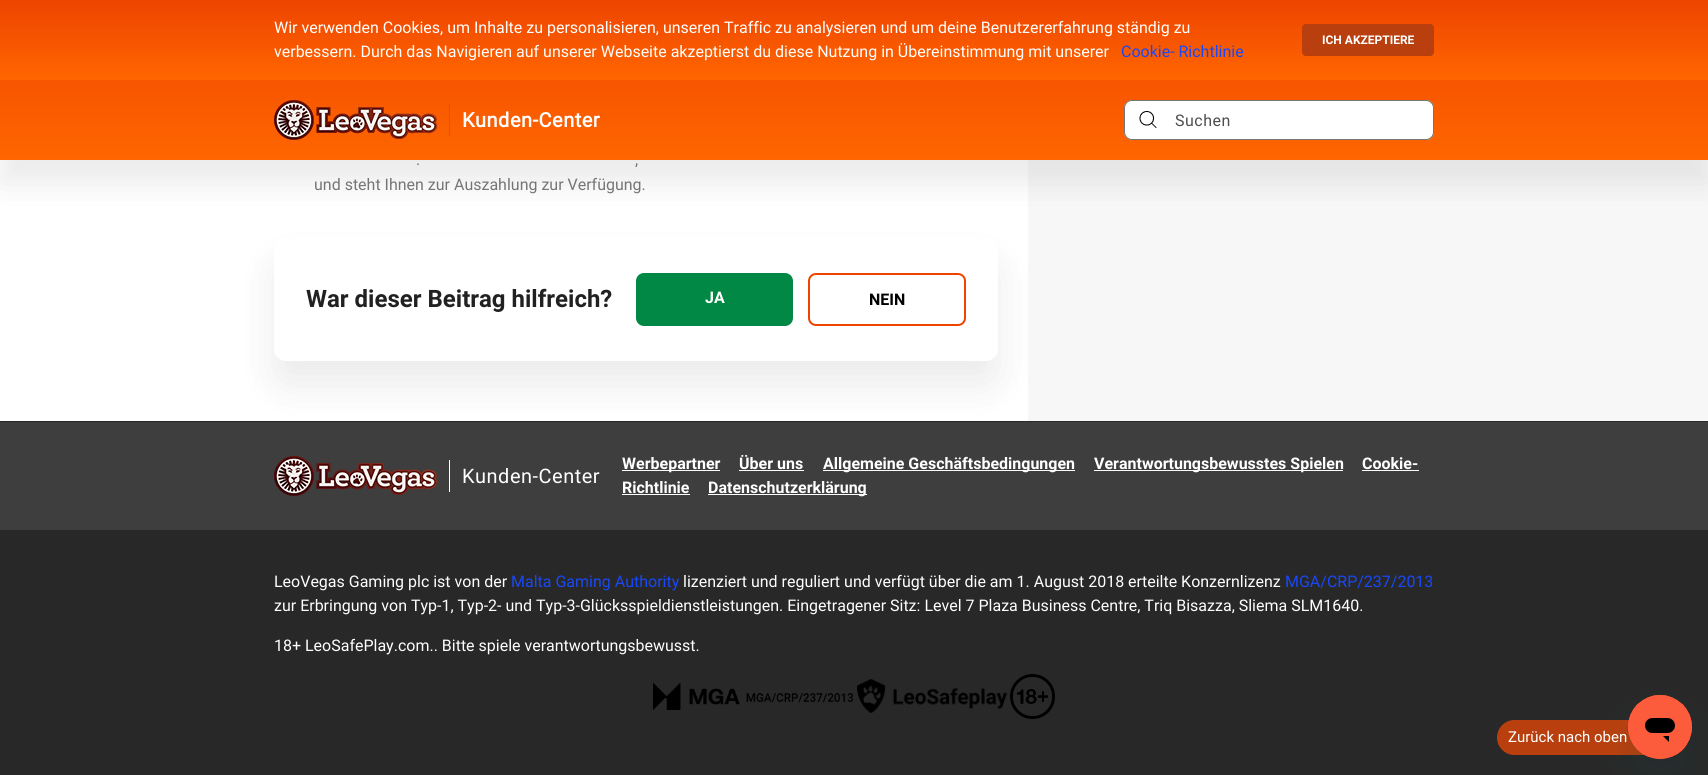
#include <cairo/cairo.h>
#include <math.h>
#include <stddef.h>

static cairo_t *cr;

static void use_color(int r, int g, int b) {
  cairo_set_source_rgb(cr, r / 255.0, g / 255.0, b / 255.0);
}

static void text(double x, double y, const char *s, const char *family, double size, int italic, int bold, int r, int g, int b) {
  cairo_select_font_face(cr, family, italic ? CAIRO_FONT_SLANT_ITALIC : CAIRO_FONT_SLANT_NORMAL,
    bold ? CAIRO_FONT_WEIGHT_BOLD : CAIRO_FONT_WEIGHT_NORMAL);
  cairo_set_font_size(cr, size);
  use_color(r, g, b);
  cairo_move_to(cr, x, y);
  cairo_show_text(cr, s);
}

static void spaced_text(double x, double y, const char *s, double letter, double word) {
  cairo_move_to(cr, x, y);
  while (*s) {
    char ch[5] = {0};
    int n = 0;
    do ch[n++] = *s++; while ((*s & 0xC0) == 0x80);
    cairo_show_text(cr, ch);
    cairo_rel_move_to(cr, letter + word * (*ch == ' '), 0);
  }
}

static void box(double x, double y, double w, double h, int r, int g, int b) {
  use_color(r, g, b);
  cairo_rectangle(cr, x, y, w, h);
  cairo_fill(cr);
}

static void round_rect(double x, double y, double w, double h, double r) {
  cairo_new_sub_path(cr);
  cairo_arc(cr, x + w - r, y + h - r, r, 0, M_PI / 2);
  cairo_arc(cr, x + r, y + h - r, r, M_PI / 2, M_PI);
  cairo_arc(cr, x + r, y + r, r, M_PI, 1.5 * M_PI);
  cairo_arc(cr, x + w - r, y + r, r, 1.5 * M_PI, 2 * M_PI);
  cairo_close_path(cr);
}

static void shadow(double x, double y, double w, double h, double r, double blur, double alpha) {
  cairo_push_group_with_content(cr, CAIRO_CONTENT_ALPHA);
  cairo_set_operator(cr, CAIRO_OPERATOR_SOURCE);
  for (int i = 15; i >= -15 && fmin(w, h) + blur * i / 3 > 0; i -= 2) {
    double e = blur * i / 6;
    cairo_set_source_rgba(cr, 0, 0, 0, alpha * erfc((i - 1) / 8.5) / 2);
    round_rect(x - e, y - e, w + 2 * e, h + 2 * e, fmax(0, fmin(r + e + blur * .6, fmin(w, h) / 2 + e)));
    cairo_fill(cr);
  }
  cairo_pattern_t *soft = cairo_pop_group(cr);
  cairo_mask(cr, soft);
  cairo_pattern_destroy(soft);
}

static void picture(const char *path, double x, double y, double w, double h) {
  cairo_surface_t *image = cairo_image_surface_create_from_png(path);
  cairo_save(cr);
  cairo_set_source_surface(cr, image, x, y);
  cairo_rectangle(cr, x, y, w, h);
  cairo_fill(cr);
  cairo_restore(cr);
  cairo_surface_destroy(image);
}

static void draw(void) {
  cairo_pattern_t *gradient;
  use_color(255, 255, 255);
  cairo_paint(cr);
  box(1434, 160, 274, 261, 247, 247, 247);
  box(0, 422, 1708, 108, 62, 62, 62);
  box(0, 421, 1708, 1, 40, 40, 40);
  use_color(0, 0, 0);
  shadow(274, 262, 724, 123, 12, 20, 0.08);
  box(1028, 160, 406, 261, 247, 247, 247);
  use_color(0, 0, 0);
  shadow(0, 24, 1708, 160, 0, 15, 0.08);
  gradient = cairo_pattern_create_linear(854, 0, 854, 160);
  cairo_pattern_add_color_stop_rgba(gradient, 0, 0.933, 0.267, 0, 1);
  cairo_pattern_add_color_stop_rgba(gradient, 1, 1, 0.4, 0, 1);
  cairo_set_source(cr, gradient);
  cairo_pattern_destroy(gradient);
  cairo_rectangle(cr, 0, 80, 1708, 80);
  cairo_fill(cr);
  gradient = cairo_pattern_create_linear(854, 0, 854, 80);
  cairo_pattern_add_color_stop_rgba(gradient, 0, 0.933, 0.267, 0, 1);
  cairo_pattern_add_color_stop_rgba(gradient, 1, 1, 0.4, 0, 1);
  cairo_set_source(cr, gradient);
  cairo_pattern_destroy(gradient);
  cairo_rectangle(cr, 0, 0, 1708, 80);
  cairo_fill(cr);
  use_color(185, 64, 14);
  round_rect(1302, 24, 132, 32, 4);
  cairo_fill(cr);
  picture("img_01.png", 274, 100, 163, 40);
  box(449, 104, 1, 32, 117, 117, 117);
  use_color(255, 255, 255);
  round_rect(1124, 100, 310, 40, 8);
  cairo_fill(cr);
  round_rect(1124.5, 100.5, 309, 39, 7.5);
  cairo_set_source_rgba(cr, 0, 0, 0, 0.54);
  cairo_set_line_width(cr, 1);
  cairo_stroke(cr);
  picture("img_02.png", 1139, 111, 18, 17);
  use_color(255, 255, 255);
  round_rect(274, 238, 724, 123, 12);
  cairo_fill(cr);
  use_color(0, 136, 68);
  round_rect(636, 273, 157, 53, 8);
  cairo_fill(cr);
  round_rect(809, 274, 156, 51, 7);
  use_color(238, 68, 0);
  cairo_set_line_width(cr, 2);
  cairo_stroke(cr);
  picture("img_03.png", 274, 456, 163, 40);
  box(449, 460, 1, 32, 255, 255, 255);
  box(622, 470, 98, 1, 255, 255, 255);
  box(739, 470, 65, 1, 255, 255, 255);
  box(823, 470, 252, 1, 255, 255, 255);
  box(1094, 470, 249, 1, 255, 255, 255);
  box(1362, 470, 57, 1, 255, 255, 255);
  box(622, 494, 68, 1, 255, 255, 255);
  box(708, 494, 159, 1, 255, 255, 255);
  box(0, 530, 1708, 245, 40, 40, 40);
  picture("img_04.png", 653, 683, 200, 27);
  picture("img_05.png", 857, 679, 150, 34);
  picture("img_06.png", 1010, 674, 45, 45);
  use_color(185, 64, 14);
  round_rect(1497, 720, 191, 35, 17.5);
  cairo_fill(cr);
  use_color(23, 73, 77);
  shadow(1628, 715, 64, 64, 32, 15, 0.15);
  picture("img_07.png", 1628, 695, 64, 64);
  text(274, 33, "Wir verwenden Cookies, um Inhalte zu personalisieren, unseren Traffic zu analysieren und um deine Benutzererfahrung ständig zu", "Roboto", 16, 0, 0, 255, 255, 255);
  text(274, 57, "verbessern. Durch das Navigieren auf unserer Webseite akzeptierst du diese Nutzung in Übereinstimmung mit unserer", "Roboto", 16, 0, 0, 255, 255, 255);
  text(1121, 57, "Cookie- Richtlinie", "Roboto", 16, 0, 0, 24, 72, 247);
  text(1322, 44, "ICH AKZEPTIERE", "Roboto", 12, 0, 1, 255, 255, 255);
  cairo_select_font_face(cr, "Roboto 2", CAIRO_FONT_SLANT_NORMAL, CAIRO_FONT_WEIGHT_BOLD);
  cairo_set_font_size(cr, 20);
  spaced_text(462, 127, "Kunden-Center", 0.5, 0);
  cairo_select_font_face(cr, "Roboto", CAIRO_FONT_SLANT_NORMAL, CAIRO_FONT_WEIGHT_NORMAL);
  cairo_set_font_size(cr, 16);
  use_color(77, 77, 77);
  spaced_text(1175, 126, "Suchen", 0.5, 0);
  text(416, 165, ".", "Roboto", 16, 0, 0, 117, 117, 117);
  text(635, 165, ",", "Roboto", 16, 0, 0, 117, 117, 117);
  text(314, 190, "und steht Ihnen zur Auszahlung zur Verfügung.", "Roboto", 16, 0, 0, 117, 117, 117);
  text(306, 307, "War dieser Beitrag hilfreich?", "Roboto", 24, 0, 1, 33, 33, 33);
  text(705, 303, "JA", "Roboto", 16, 0, 1, 255, 255, 255);
  text(869, 305, "NEIN", "Roboto", 16, 0, 1, 0, 0, 0);
  cairo_select_font_face(cr, "Roboto", CAIRO_FONT_SLANT_NORMAL, CAIRO_FONT_WEIGHT_NORMAL);
  cairo_set_font_size(cr, 20);
  use_color(255, 255, 255);
  spaced_text(462, 483, "Kunden-Center", 0.5, 0);
  text(622, 469, "Werbepartner", "Roboto", 16, 0, 1, 255, 255, 255);
  text(739, 469, "Über uns", "Roboto", 16, 0, 1, 255, 255, 255);
  text(823, 469, "Allgemeine Geschäftsbedingungen", "Roboto", 16, 0, 1, 255, 255, 255);
  text(1094, 469, "Verantwortungsbewusstes Spielen", "Roboto", 16, 0, 1, 255, 255, 255);
  text(1362, 469, "Cookie-", "Roboto", 16, 0, 1, 255, 255, 255);
  text(622, 493, "Richtlinie", "Roboto", 16, 0, 1, 255, 255, 255);
  text(708, 493, "Datenschutzerklärung", "Roboto", 16, 0, 1, 255, 255, 255);
  text(274, 587, "LeoVegas Gaming plc ist von der", "Roboto", 16, 0, 0, 255, 255, 255);
  text(511, 587, "Malta Gaming Authority", "Roboto", 16, 0, 0, 24, 72, 247);
  text(683, 587, "lizenziert und reguliert und verfügt über die am 1. August 2018 erteilte Konzernlizenz", "Roboto", 16, 0, 0, 255, 255, 255);
  text(1285, 587, "MGA/CRP/237/2013", "Roboto", 16, 0, 0, 24, 72, 247);
  text(274, 611, "zur Erbringung von Typ-1, Typ-2- und Typ-3-Glücksspieldienstleistungen. Eingetragener Sitz: Level 7 Plaza Business Centre, Triq Bisazza, Sliema SLM1640.", "Roboto", 16, 0, 0, 255, 255, 255);
  text(274, 651, "18+ LeoSafePlay.com.. Bitte spiele verantwortungsbewusst.", "Roboto", 16, 0, 0, 255, 255, 255);
  text(1508, 742, "Zurück nach oben", "Roboto", 15, 0, 0, 255, 255, 255);
}

int main(void) {
  cairo_surface_t *surface = cairo_image_surface_create(CAIRO_FORMAT_RGB24, 1708, 775);
  cr = cairo_create(surface);
  cairo_font_options_t *options = cairo_font_options_create();
  cairo_font_options_set_hint_metrics(options, CAIRO_HINT_METRICS_OFF);
  cairo_font_options_set_hint_style(options, CAIRO_HINT_STYLE_NONE);
  cairo_set_font_options(cr, options);
  cairo_set_miter_limit(cr, 4);
  draw();
  cairo_surface_write_to_png(surface, "out.png");
  cairo_font_options_destroy(options);
  cairo_destroy(cr);
  cairo_surface_destroy(surface);
  return 0;
}
